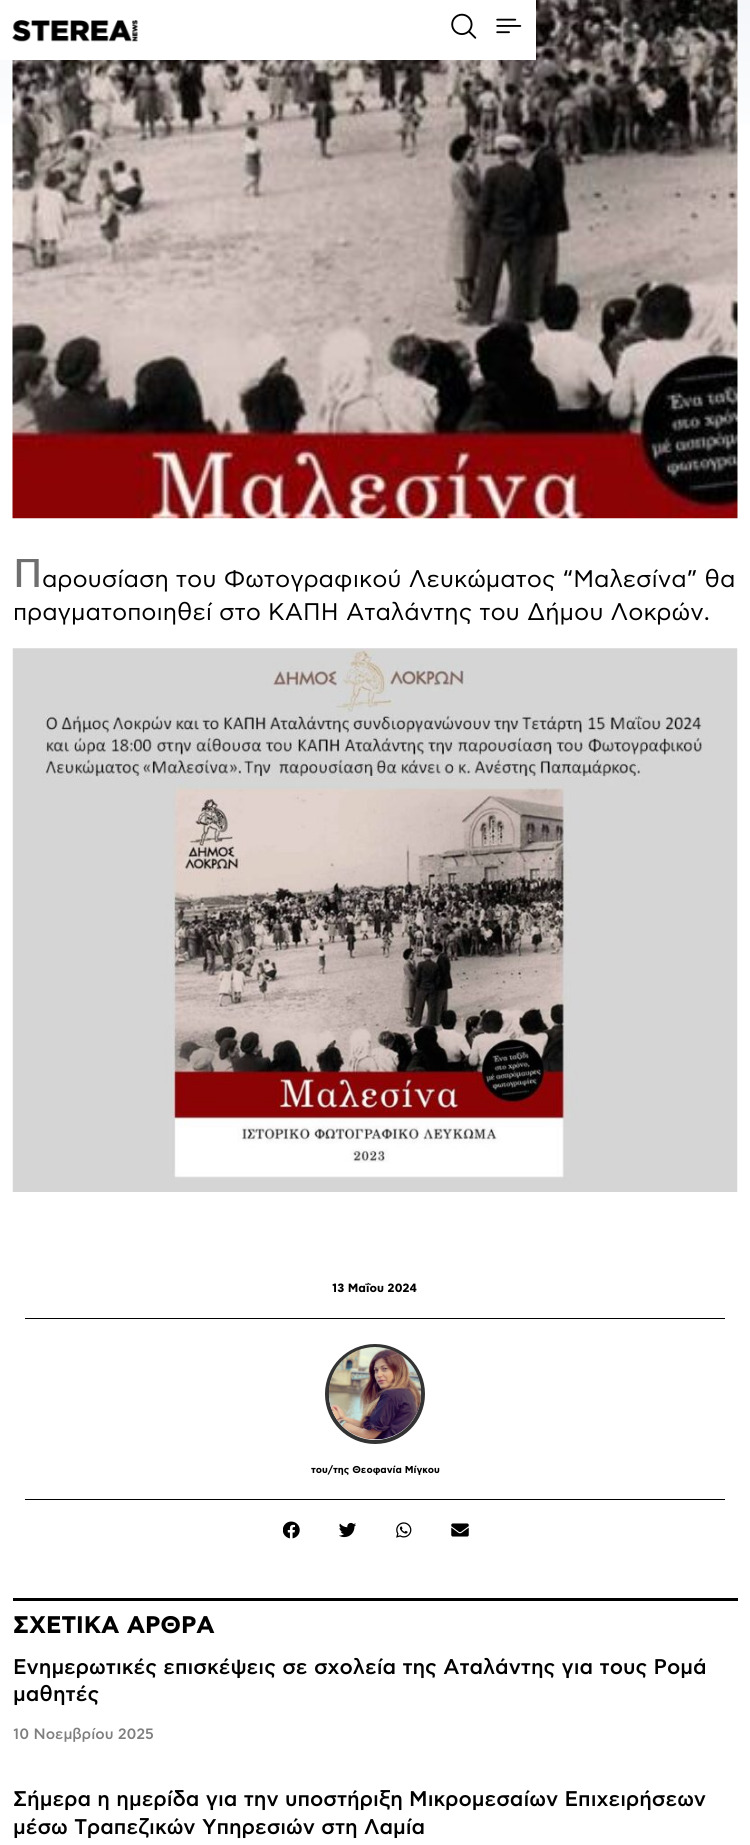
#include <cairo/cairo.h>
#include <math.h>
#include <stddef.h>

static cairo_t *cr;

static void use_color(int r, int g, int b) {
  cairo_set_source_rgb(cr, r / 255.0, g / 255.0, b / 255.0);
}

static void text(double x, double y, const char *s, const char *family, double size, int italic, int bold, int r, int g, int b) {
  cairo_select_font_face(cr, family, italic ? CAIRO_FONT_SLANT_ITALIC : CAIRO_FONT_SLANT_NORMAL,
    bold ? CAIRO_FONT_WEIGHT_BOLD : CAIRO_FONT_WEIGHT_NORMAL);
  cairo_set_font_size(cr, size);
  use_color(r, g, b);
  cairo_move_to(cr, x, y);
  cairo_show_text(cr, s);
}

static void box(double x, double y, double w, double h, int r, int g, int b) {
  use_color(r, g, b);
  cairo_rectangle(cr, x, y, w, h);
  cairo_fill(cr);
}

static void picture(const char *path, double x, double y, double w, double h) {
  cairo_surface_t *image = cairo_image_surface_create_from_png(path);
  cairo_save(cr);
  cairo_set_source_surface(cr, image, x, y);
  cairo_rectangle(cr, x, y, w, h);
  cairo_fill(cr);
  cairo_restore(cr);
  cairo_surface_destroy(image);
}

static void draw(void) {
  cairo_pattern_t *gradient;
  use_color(255, 255, 255);
  cairo_paint(cr);
  gradient = cairo_pattern_create_linear(375, -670, 375, 160);
  cairo_pattern_add_color_stop_rgba(gradient, 0, 0.773, 0.82, 0.898, 1);
  cairo_pattern_add_color_stop_rgba(gradient, 1, 1, 1, 1, 1);
  cairo_set_source(cr, gradient);
  cairo_pattern_destroy(gradient);
  cairo_rectangle(cr, 0, 0, 750, 124);
  cairo_fill(cr);
  picture("img_04.png", 12, 0, 726, 519);
  box(0, 0, 536, 60, 255, 255, 255);
  picture("img_01.png", 12, 20, 126, 22);
  picture("img_02.png", 451, 13, 26, 26);
  picture("img_03.png", 496, 18, 26, 16);
  picture("img_05.png", 12, 648, 726, 544);
  box(25, 1318, 700, 1, 0, 0, 0);
  cairo_arc(cr, 375, 1394, 48, 0, 2 * M_PI);
  use_color(51, 51, 51);
  cairo_set_line_width(cr, 4);
  cairo_stroke(cr);
  picture("img_06.png", 328, 1347, 94, 93);
  box(25, 1499, 700, 1, 0, 0, 0);
  picture("img_07.png", 283, 1521, 17, 18);
  picture("img_08.png", 339, 1522, 17, 16);
  picture("img_09.png", 396, 1522, 16, 16);
  picture("img_10.png", 451, 1523, 18, 14);
  box(13, 1598, 725, 3, 0, 0, 0);
  cairo_save(cr);
  cairo_rectangle(cr, 13, 559, 725, 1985);
  cairo_clip(cr);
  text(13, 587, "Π", "Noto Sans Medium", 40, 0, 0, 111, 111, 111);
  cairo_restore(cr);
  text(42, 587, "αρουσίαση του Φωτογραφικού Λευκώματος “Μαλεσίνα” θα", "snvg", 24, 0, 0, 0, 0, 0);
  text(13, 620, "πραγματοποιηθεί στο ΚΑΠΗ Αταλάντης του Δήμου Λοκρών.", "snvg", 24, 0, 0, 0, 0, 0);
  text(332, 1292, "13 Μαΐου 2024", "snvg", 12, 0, 1, 0, 0, 0);
  text(311, 1473, "του/της Θεοφανία Μίγκου", "snvg", 10, 0, 1, 0, 0, 0);
  text(13, 1633, "ΣΧΕΤΙΚΑ ΑΡΘΡΑ", "snvg", 24, 0, 1, 0, 0, 0);
  text(13, 1674, "Ενημερωτικές επισκέψεις σε σχολεία της Αταλάντης για τους Ρομά", "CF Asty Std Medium", 21.25, 0, 0, 0, 0, 0);
  text(13, 1701, "μαθητές", "CF Asty Std Medium", 21.25, 0, 0, 0, 0, 0);
  text(13, 1739, "10 Νοεμβρίου 2025", "CF Asty Std Medium", 15, 0, 0, 126, 126, 126);
  text(13, 1806, "Σήμερα η ημερίδα για την υποστήριξη Μικρομεσαίων Επιχειρήσεων", "CF Asty Std Medium", 21.25, 0, 0, 0, 0, 0);
  text(13, 1834, "μέσω Τραπεζικών Υπηρεσιών στη Λαμία", "CF Asty Std Medium", 21.25, 0, 0, 0, 0, 0);
}

int main(void) {
  cairo_surface_t *surface = cairo_image_surface_create(CAIRO_FORMAT_RGB24, 750, 1845);
  cr = cairo_create(surface);
  cairo_font_options_t *options = cairo_font_options_create();
  cairo_font_options_set_hint_metrics(options, CAIRO_HINT_METRICS_OFF);
  cairo_font_options_set_hint_style(options, CAIRO_HINT_STYLE_NONE);
  cairo_set_font_options(cr, options);
  cairo_set_miter_limit(cr, 4);
  draw();
  cairo_surface_write_to_png(surface, "out.png");
  cairo_font_options_destroy(options);
  cairo_destroy(cr);
  cairo_surface_destroy(surface);
  return 0;
}
